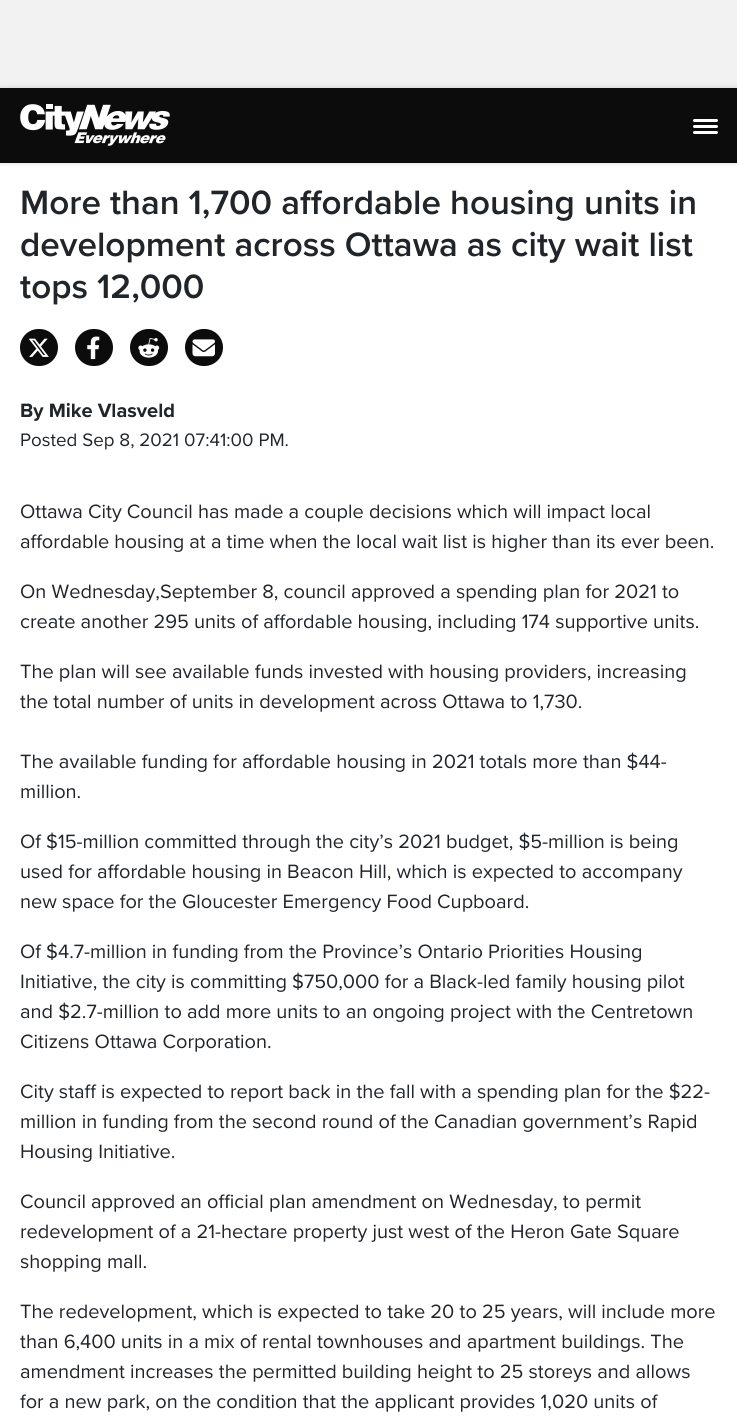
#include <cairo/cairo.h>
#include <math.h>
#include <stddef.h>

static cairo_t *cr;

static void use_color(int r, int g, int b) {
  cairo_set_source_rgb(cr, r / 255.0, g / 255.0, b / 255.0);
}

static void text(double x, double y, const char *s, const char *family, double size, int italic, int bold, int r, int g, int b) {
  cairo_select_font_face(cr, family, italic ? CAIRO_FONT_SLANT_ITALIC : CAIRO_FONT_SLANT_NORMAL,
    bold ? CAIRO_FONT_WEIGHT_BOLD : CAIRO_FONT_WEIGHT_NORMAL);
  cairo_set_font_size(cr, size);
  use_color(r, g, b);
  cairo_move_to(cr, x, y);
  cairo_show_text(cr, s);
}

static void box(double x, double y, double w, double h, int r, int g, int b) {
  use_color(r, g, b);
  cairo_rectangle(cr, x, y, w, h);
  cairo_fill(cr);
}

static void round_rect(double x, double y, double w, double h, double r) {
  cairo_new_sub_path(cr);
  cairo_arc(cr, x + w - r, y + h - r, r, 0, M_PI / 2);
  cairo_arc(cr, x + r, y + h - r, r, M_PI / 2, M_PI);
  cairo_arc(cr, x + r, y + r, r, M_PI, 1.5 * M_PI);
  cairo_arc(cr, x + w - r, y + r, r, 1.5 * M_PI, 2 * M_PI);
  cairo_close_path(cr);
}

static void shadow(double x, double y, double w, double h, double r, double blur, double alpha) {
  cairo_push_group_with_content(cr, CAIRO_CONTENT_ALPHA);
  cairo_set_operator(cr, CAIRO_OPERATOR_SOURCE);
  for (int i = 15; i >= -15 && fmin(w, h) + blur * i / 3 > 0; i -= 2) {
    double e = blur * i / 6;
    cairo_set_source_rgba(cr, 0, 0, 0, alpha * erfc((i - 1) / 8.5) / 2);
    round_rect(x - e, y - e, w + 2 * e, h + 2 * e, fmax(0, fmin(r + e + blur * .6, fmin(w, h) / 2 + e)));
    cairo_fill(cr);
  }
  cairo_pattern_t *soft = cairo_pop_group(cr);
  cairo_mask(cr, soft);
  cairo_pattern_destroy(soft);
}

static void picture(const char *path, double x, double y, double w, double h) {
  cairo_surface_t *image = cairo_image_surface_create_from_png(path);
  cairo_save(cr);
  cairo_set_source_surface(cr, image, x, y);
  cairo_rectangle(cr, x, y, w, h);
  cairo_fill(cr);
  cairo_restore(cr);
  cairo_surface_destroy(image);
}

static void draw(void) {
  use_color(255, 255, 255);
  cairo_paint(cr);
  box(0, 0, 737, 88, 242, 242, 242);
  use_color(0, 0, 0);
  shadow(0, 88, 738, 75, 0, 2.5, 0.15);
  box(0, 88, 737, 75, 12, 12, 12);
  picture("img_01.png", 20, 104, 150, 42);
  use_color(255, 255, 255);
  round_rect(693, 125, 25, 3, 1.5);
  cairo_fill(cr);
  round_rect(693, 119, 25, 3, 1.5);
  cairo_fill(cr);
  round_rect(693, 131, 25, 3, 1.5);
  cairo_fill(cr);
  use_color(12, 12, 12);
  round_rect(20, 329, 38, 37, 18.5);
  cairo_fill(cr);
  picture("img_02.png", 28, 338, 21, 19);
  round_rect(75, 329, 38, 37, 18.5);
  cairo_fill(cr);
  picture("img_03.png", 87, 336, 13, 24);
  round_rect(130, 329, 38, 37, 18.5);
  cairo_fill(cr);
  picture("img_04.png", 138, 338, 22, 20);
  round_rect(185, 329, 38, 37, 18.5);
  cairo_fill(cr);
  picture("img_05.png", 192, 339, 23, 18);
  text(20, 214, "More than 1,700 affordable housing units in", "Proxima Nova SemiBold", 35, 0, 0, 33, 37, 41);
  text(20, 256, "development across Ottawa as city wait list", "Proxima Nova SemiBold", 35, 0, 0, 33, 37, 41);
  text(20, 298, "tops 12,000", "Proxima Nova SemiBold", 35, 0, 0, 33, 37, 41);
  text(20, 417, "By Mike Vlasveld", "Proxima Nova", 20, 0, 1, 33, 37, 41);
  text(20, 446, "Posted Sep 8, 2021 07:41:00 PM.", "Proxima Nova", 18.75, 0, 0, 33, 37, 41);
  text(20, 518, "Ottawa City Council has made a couple decisions which will impact local", "Proxima Nova", 20, 0, 0, 33, 37, 41);
  text(20, 548, "affordable housing at a time when the local wait list is higher than its ever been.", "Proxima Nova", 20, 0, 0, 33, 37, 41);
  text(20, 598, "On Wednesday,September 8, council approved a spending plan for 2021 to", "Proxima Nova", 20, 0, 0, 33, 37, 41);
  text(20, 628, "create another 295 units of affordable housing, including 174 supportive units.", "Proxima Nova", 20, 0, 0, 33, 37, 41);
  text(20, 678, "The plan will see available funds invested with housing providers, increasing", "Proxima Nova", 20, 0, 0, 33, 37, 41);
  text(20, 708, "the total number of units in development across Ottawa to 1,730.", "Proxima Nova", 20, 0, 0, 33, 37, 41);
  text(20, 768, "The available funding for affordable housing in 2021 totals more than $44-", "Proxima Nova", 20, 0, 0, 33, 37, 41);
  text(20, 798, "million.", "Proxima Nova", 20, 0, 0, 33, 37, 41);
  text(20, 848, "Of $15-million committed through the city’s 2021 budget, $5-million is being", "Proxima Nova", 20, 0, 0, 33, 37, 41);
  text(20, 878, "used for affordable housing in Beacon Hill, which is expected to accompany", "Proxima Nova", 20, 0, 0, 33, 37, 41);
  text(20, 908, "new space for the Gloucester Emergency Food Cupboard.", "Proxima Nova", 20, 0, 0, 33, 37, 41);
  text(20, 958, "Of $4.7-million in funding from the Province’s Ontario Priorities Housing", "Proxima Nova", 20, 0, 0, 33, 37, 41);
  text(20, 988, "Initiative, the city is committing $750,000 for a Black-led family housing pilot", "Proxima Nova", 20, 0, 0, 33, 37, 41);
  text(20, 1018, "and $2.7-million to add more units to an ongoing project with the Centretown", "Proxima Nova", 20, 0, 0, 33, 37, 41);
  text(20, 1048, "Citizens Ottawa Corporation.", "Proxima Nova", 20, 0, 0, 33, 37, 41);
  text(20, 1098, "City staff is expected to report back in the fall with a spending plan for the $22-", "Proxima Nova", 20, 0, 0, 33, 37, 41);
  text(20, 1128, "million in funding from the second round of the Canadian government’s Rapid", "Proxima Nova", 20, 0, 0, 33, 37, 41);
  text(20, 1158, "Housing Initiative.", "Proxima Nova", 20, 0, 0, 33, 37, 41);
  text(20, 1208, "Council approved an official plan amendment on Wednesday, to permit", "Proxima Nova", 20, 0, 0, 33, 37, 41);
  text(20, 1238, "redevelopment of a 21-hectare property just west of the Heron Gate Square", "Proxima Nova", 20, 0, 0, 33, 37, 41);
  text(20, 1268, "shopping mall.", "Proxima Nova", 20, 0, 0, 33, 37, 41);
  text(20, 1318, "The redevelopment, which is expected to take 20 to 25 years, will include more", "Proxima Nova", 20, 0, 0, 33, 37, 41);
  text(20, 1348, "than 6,400 units in a mix of rental townhouses and apartment buildings. The", "Proxima Nova", 20, 0, 0, 33, 37, 41);
  text(20, 1378, "amendment increases the permitted building height to 25 storeys and allows", "Proxima Nova", 20, 0, 0, 33, 37, 41);
  text(20, 1408, "for a new park, on the condition that the applicant provides 1,020 units of", "Proxima Nova", 20, 0, 0, 33, 37, 41);
}

int main(void) {
  cairo_surface_t *surface = cairo_image_surface_create(CAIRO_FORMAT_RGB24, 737, 1418);
  cr = cairo_create(surface);
  cairo_font_options_t *options = cairo_font_options_create();
  cairo_font_options_set_hint_metrics(options, CAIRO_HINT_METRICS_OFF);
  cairo_font_options_set_hint_style(options, CAIRO_HINT_STYLE_NONE);
  cairo_set_font_options(cr, options);
  cairo_set_miter_limit(cr, 4);
  draw();
  cairo_surface_write_to_png(surface, "out.png");
  cairo_font_options_destroy(options);
  cairo_destroy(cr);
  cairo_surface_destroy(surface);
  return 0;
}
